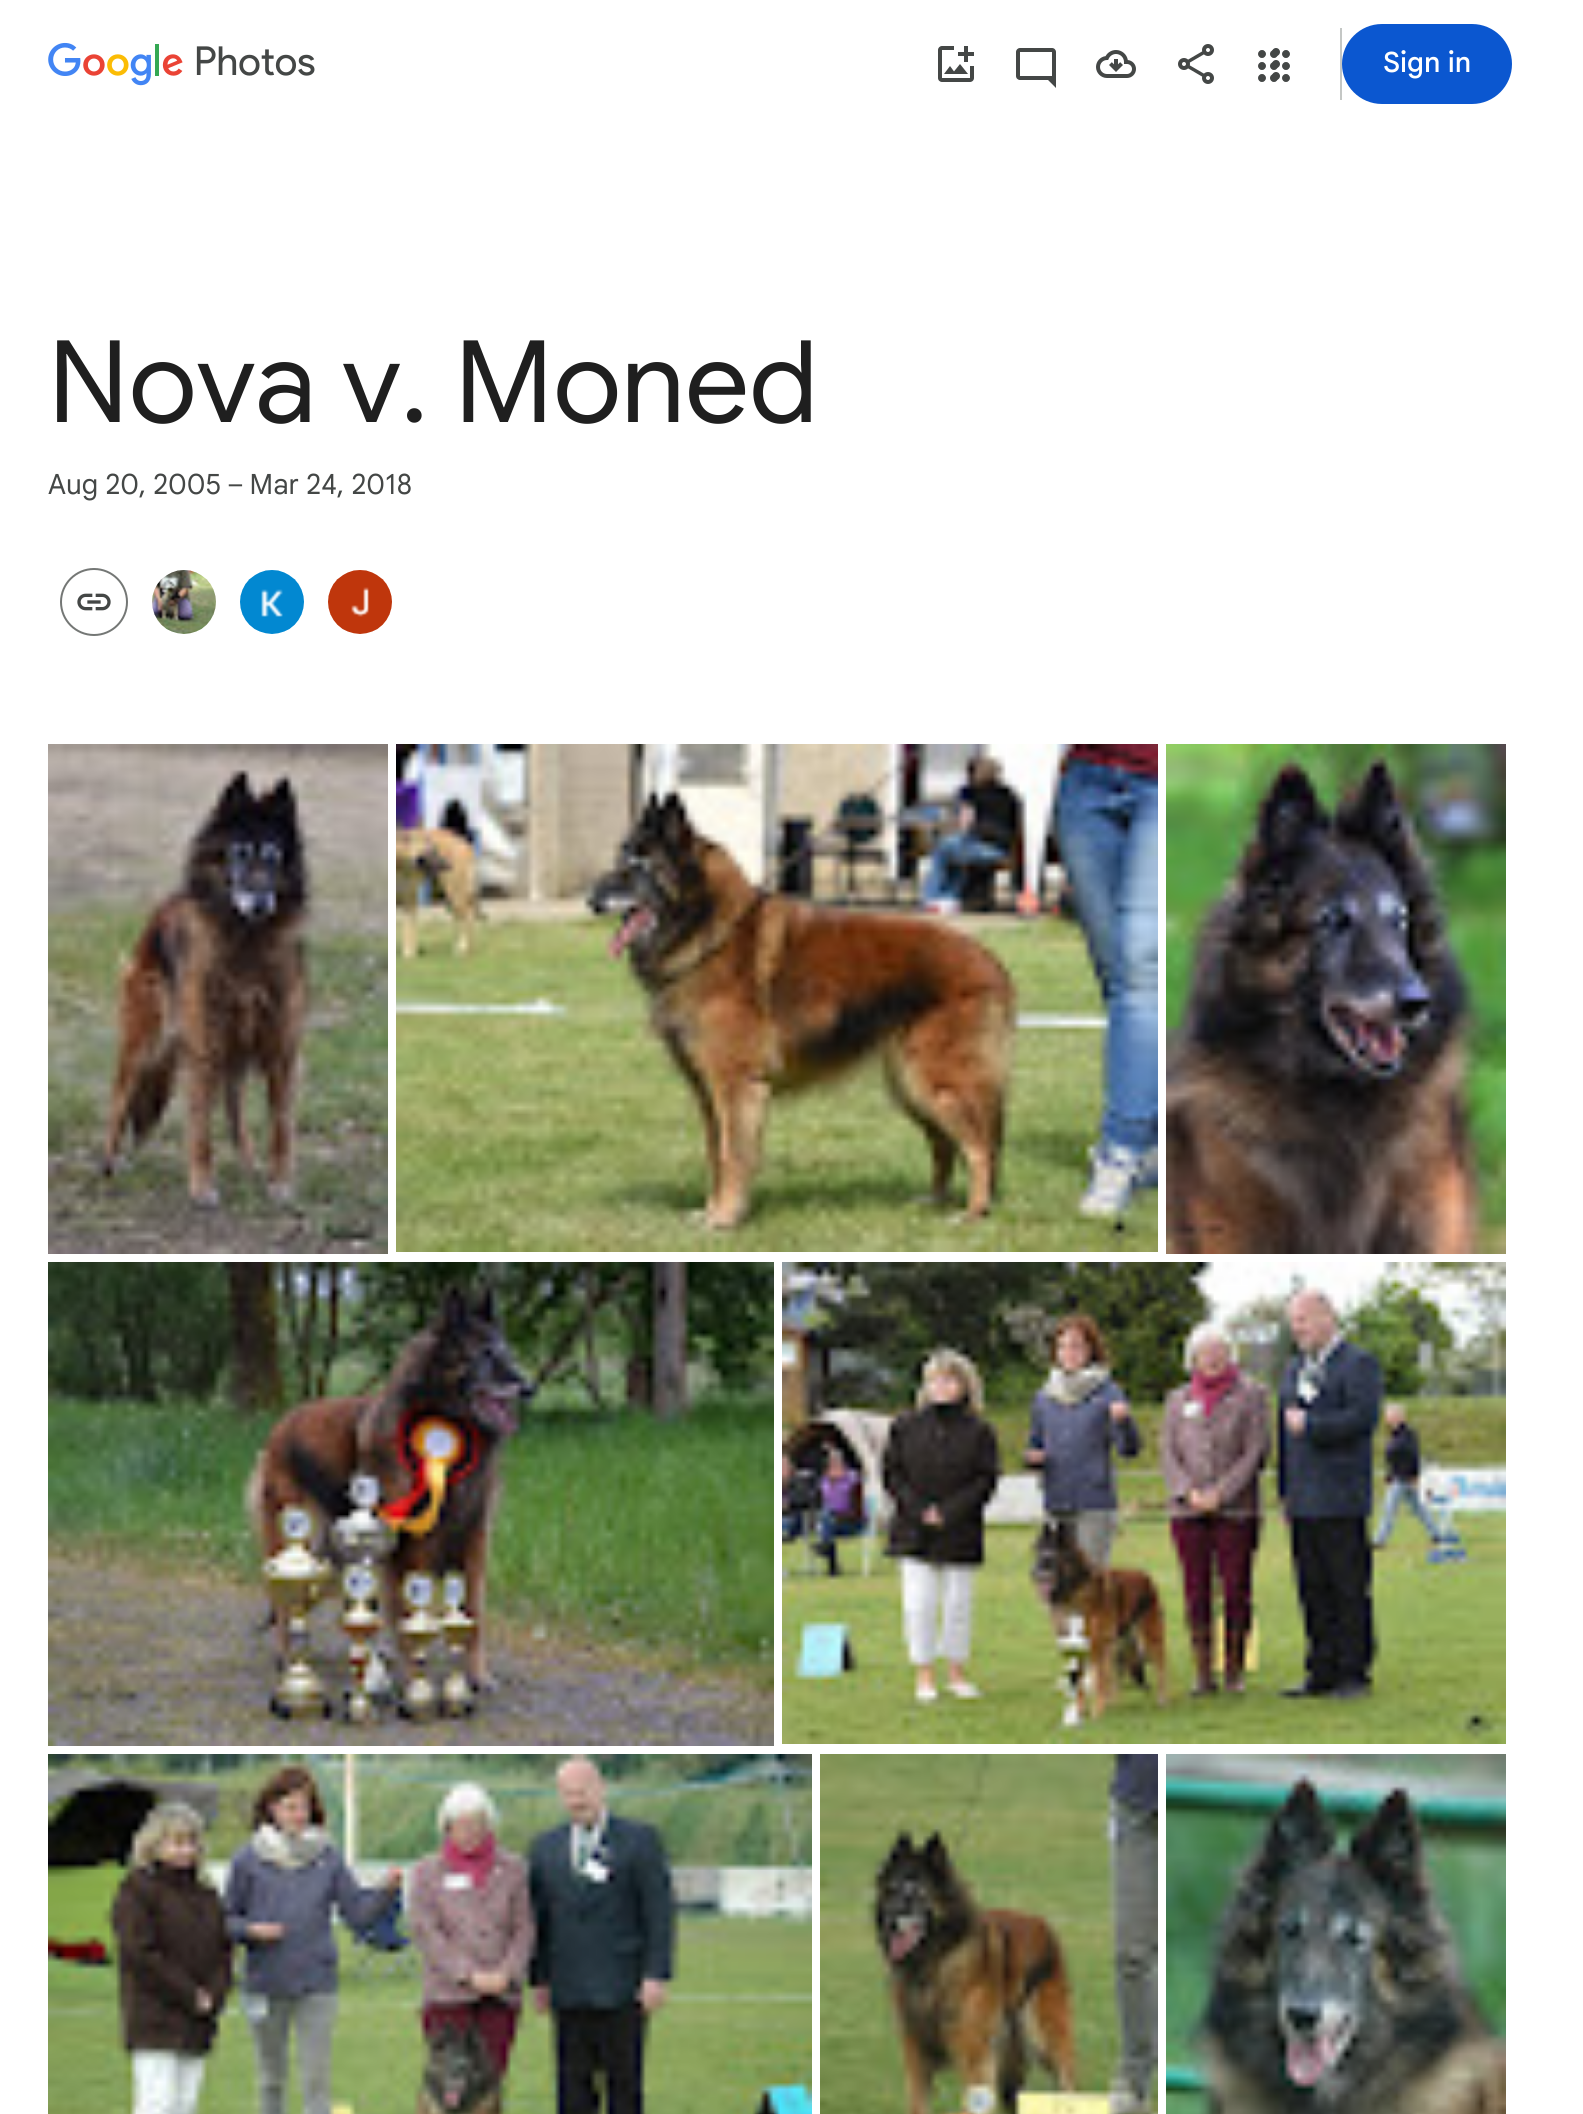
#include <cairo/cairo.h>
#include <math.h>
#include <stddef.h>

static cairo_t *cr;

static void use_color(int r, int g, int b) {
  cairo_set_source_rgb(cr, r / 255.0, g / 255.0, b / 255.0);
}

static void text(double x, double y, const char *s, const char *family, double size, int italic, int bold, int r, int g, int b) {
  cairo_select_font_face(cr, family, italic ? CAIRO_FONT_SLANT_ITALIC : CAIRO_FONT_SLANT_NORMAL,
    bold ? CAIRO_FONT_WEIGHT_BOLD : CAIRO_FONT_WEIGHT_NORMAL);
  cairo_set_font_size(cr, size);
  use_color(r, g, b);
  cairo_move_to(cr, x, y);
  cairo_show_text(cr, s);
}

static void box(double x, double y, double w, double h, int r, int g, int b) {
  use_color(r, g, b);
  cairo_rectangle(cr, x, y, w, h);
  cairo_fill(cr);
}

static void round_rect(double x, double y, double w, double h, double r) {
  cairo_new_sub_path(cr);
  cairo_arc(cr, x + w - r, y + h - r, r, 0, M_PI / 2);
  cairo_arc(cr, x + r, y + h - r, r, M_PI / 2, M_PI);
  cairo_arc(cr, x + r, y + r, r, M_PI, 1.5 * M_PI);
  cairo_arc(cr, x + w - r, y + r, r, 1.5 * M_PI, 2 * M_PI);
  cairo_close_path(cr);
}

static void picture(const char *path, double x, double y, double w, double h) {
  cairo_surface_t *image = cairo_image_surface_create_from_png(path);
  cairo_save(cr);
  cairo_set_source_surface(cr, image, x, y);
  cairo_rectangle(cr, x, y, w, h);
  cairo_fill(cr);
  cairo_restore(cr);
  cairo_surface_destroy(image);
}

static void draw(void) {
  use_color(255, 255, 255);
  cairo_paint(cr);
  picture("img_01.png", 48, 42, 135, 44);
  picture("img_02.png", 938, 46, 36, 36);
  picture("img_03.png", 1016, 48, 40, 40);
  picture("img_04.png", 1096, 50, 40, 28);
  picture("img_05.png", 1178, 44, 36, 40);
  picture("img_06.png", 1272, 48, 8, 32);
  box(1340, 28, 2, 72, 196, 199, 197);
  cairo_arc(cr, 94, 602, 33, 0, 2 * M_PI);
  use_color(116, 119, 117);
  cairo_stroke(cr);
  picture("img_07.png", 77, 593, 34, 18);
  picture("img_08.png", 152, 570, 64, 64);
  picture("img_09.png", 240, 570, 64, 64);
  picture("img_10.png", 328, 570, 64, 64);
  picture("img_11.png", 48, 744, 340, 510);
  picture("img_12.png", 396, 744, 762, 508);
  picture("img_13.png", 1166, 744, 340, 510);
  picture("img_14.png", 48, 1262, 726, 484);
  picture("img_15.png", 782, 1262, 724, 482);
  picture("img_16.png", 48, 1754, 764, 360);
  picture("img_17.png", 820, 1754, 338, 360);
  picture("img_18.png", 1166, 1754, 340, 360);
  picture("img_19.png", 1258, 50, 32, 32);
  use_color(11, 87, 208);
  round_rect(1342, 24, 170, 80, 40);
  cairo_fill(cr);
  text(194, 75, "Photos", "Product Sans", 40, 0, 0, 68, 71, 70);
  text(48, 422, "Nova v. Moned", "Google Sans", 114, 0, 0, 31, 31, 31);
  text(48, 494, "Aug 20, 2005 – Mar 24, 2018", "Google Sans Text", 28, 0, 0, 68, 71, 70);
  text(1383, 72, "Sign in", "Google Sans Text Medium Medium", 28, 0, 0, 255, 255, 255);
}

int main(void) {
  cairo_surface_t *surface = cairo_image_surface_create(CAIRO_FORMAT_RGB24, 1583, 2114);
  cr = cairo_create(surface);
  cairo_font_options_t *options = cairo_font_options_create();
  cairo_font_options_set_hint_metrics(options, CAIRO_HINT_METRICS_OFF);
  cairo_font_options_set_hint_style(options, CAIRO_HINT_STYLE_NONE);
  cairo_set_font_options(cr, options);
  cairo_set_miter_limit(cr, 4);
  draw();
  cairo_surface_write_to_png(surface, "out.png");
  cairo_font_options_destroy(options);
  cairo_destroy(cr);
  cairo_surface_destroy(surface);
  return 0;
}
